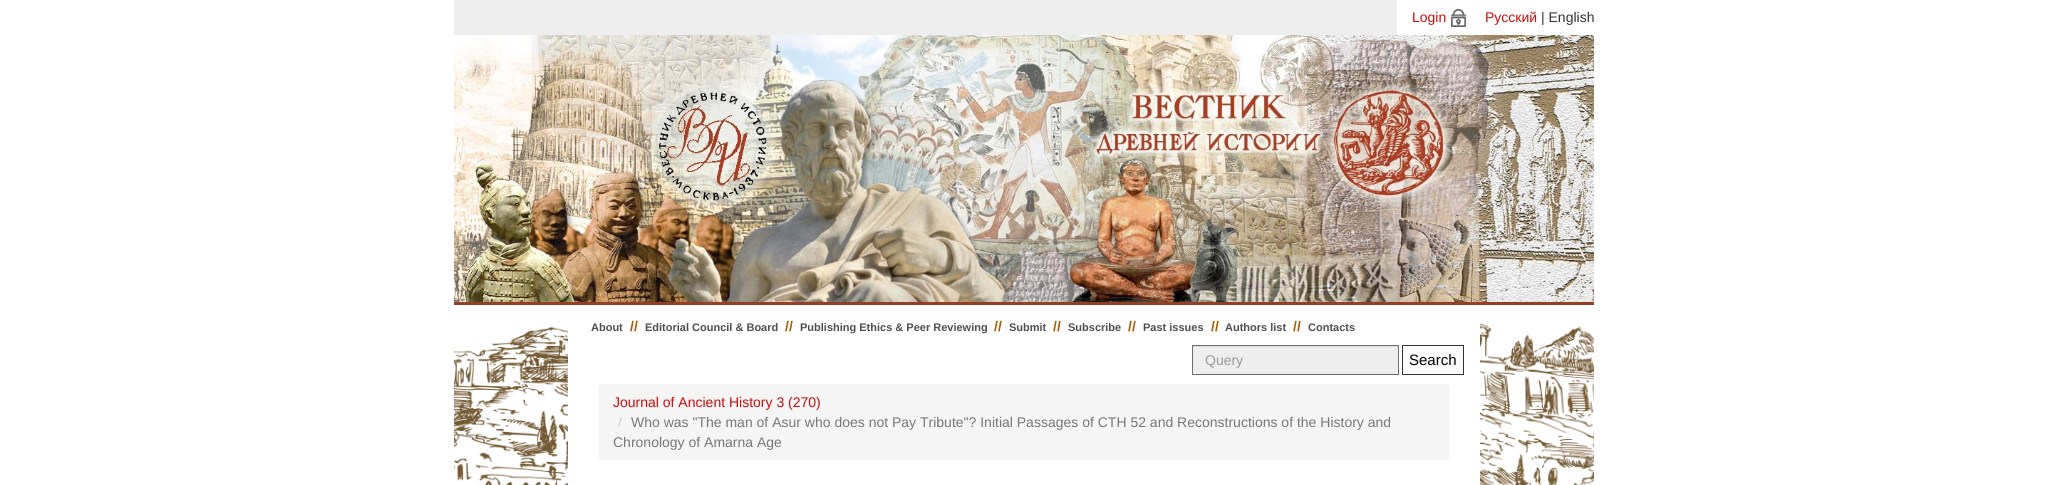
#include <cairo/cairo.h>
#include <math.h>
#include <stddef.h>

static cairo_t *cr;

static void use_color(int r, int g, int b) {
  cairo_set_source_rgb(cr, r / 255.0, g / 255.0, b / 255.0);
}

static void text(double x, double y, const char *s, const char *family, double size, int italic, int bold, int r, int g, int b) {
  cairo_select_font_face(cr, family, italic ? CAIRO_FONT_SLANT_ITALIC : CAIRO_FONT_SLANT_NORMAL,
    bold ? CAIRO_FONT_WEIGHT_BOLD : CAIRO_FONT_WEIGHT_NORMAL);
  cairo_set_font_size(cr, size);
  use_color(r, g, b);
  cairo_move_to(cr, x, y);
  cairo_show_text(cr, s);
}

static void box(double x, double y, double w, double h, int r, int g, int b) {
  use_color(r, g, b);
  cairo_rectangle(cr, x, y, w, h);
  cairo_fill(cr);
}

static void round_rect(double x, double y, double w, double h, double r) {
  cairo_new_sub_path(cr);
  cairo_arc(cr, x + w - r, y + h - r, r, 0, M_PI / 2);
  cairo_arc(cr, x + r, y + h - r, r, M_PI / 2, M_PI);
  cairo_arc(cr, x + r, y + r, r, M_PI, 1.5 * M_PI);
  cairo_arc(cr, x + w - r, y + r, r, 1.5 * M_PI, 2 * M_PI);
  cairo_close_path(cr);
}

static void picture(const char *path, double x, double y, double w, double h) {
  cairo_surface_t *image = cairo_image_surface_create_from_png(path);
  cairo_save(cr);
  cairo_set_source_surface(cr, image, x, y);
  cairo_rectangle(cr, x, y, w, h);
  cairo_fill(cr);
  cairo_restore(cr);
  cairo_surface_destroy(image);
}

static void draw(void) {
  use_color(255, 255, 255);
  cairo_paint(cr);
  box(454, 0, 943, 35, 238, 238, 238);
  picture("img_01.png", 1451, 9, 15, 18);
  picture("img_02.png", 454, 35, 1140, 267);
  box(454, 302, 1140, 3, 148, 64, 39);
  picture("img_03.png", 454, 326, 114, 159);
  box(1193, 347, 205, 27, 238, 238, 238);
  box(1193, 346, 205, 1, 220, 220, 220);
  cairo_rectangle(cr, 1192.5, 345.5, 206, 29);
  use_color(109, 109, 109);
  cairo_set_line_width(cr, 1);
  cairo_stroke(cr);
  use_color(251, 251, 251);
  cairo_rectangle(cr, 1402.5, 345.5, 61, 29);
  cairo_fill_preserve(cr);
  use_color(53, 53, 53);
  cairo_stroke(cr);
  use_color(245, 245, 245);
  round_rect(598, 384, 852, 76, 4);
  cairo_fill(cr);
  picture("img_04.png", 1480, 323, 114, 162);
  text(1412, 22, "Login", "Liberation Sans", 14, 0, 0, 208, 9, 9);
  text(1485, 22, "Русский", "Liberation Sans", 14, 0, 0, 208, 9, 9);
  text(1541, 22, "| English", "Liberation Sans", 14, 0, 0, 51, 51, 51);
  text(591, 331, "About", "Liberation Sans", 11, 0, 1, 78, 78, 78);
  text(630, 331, "//", "Liberation Sans", 14, 0, 1, 171, 90, 0);
  text(645, 331, "Editorial Council & Board", "Liberation Sans", 11, 0, 1, 78, 78, 78);
  text(785, 331, "//", "Liberation Sans", 14, 0, 1, 171, 90, 0);
  text(800, 331, "Publishing Ethics & Peer Reviewing", "Liberation Sans", 11, 0, 1, 78, 78, 78);
  text(994, 331, "//", "Liberation Sans", 14, 0, 1, 171, 90, 0);
  text(1009, 331, "Submit", "Liberation Sans", 11, 0, 1, 78, 78, 78);
  text(1053, 331, "//", "Liberation Sans", 14, 0, 1, 171, 90, 0);
  text(1068, 331, "Subscribe", "Liberation Sans", 11, 0, 1, 78, 78, 78);
  text(1128, 331, "//", "Liberation Sans", 14, 0, 1, 171, 90, 0);
  text(1143, 331, "Past issues", "Liberation Sans", 11, 0, 1, 78, 78, 78);
  text(1211, 331, "//", "Liberation Sans", 14, 0, 1, 171, 90, 0);
  text(1225, 331, "Authors list", "Liberation Sans", 11, 0, 1, 78, 78, 78);
  text(1293, 331, "//", "Liberation Sans", 14, 0, 1, 171, 90, 0);
  text(1308, 331, "Contacts", "Liberation Sans", 11, 0, 1, 78, 78, 78);
  text(1205, 365, "Query", "Liberation Sans", 14, 0, 0, 153, 153, 153);
  text(1409, 365, "Search", "Liberation Sans", 15, 0, 0, 0, 0, 0);
  text(613, 407, "Journal of Ancient History 3 (270)", "Liberation Sans", 14, 0, 0, 208, 9, 9);
  text(618, 427, "/", "Liberation Sans", 14, 0, 0, 204, 204, 204);
  text(631, 427, "Who was \"The man of Asur who does not Pay Tribute\"? Initial Passages of CTH 52 and Reconstructions of the History and", "Liberation Sans", 14, 0, 0, 119, 119, 119);
  text(613, 447, "Chronology of Amarna Age", "Liberation Sans", 14, 0, 0, 119, 119, 119);
}

int main(void) {
  cairo_surface_t *surface = cairo_image_surface_create(CAIRO_FORMAT_RGB24, 2048, 485);
  cr = cairo_create(surface);
  cairo_font_options_t *options = cairo_font_options_create();
  cairo_font_options_set_hint_metrics(options, CAIRO_HINT_METRICS_OFF);
  cairo_font_options_set_hint_style(options, CAIRO_HINT_STYLE_NONE);
  cairo_set_font_options(cr, options);
  cairo_set_miter_limit(cr, 4);
  draw();
  cairo_surface_write_to_png(surface, "out.png");
  cairo_font_options_destroy(options);
  cairo_destroy(cr);
  cairo_surface_destroy(surface);
  return 0;
}
